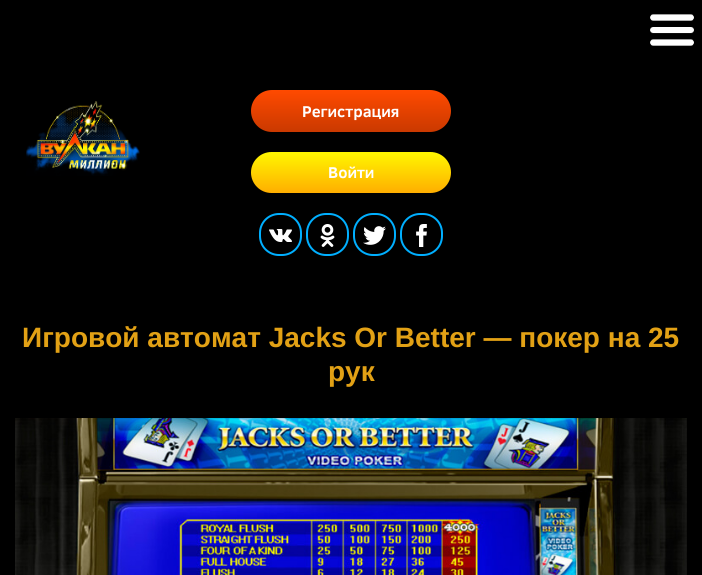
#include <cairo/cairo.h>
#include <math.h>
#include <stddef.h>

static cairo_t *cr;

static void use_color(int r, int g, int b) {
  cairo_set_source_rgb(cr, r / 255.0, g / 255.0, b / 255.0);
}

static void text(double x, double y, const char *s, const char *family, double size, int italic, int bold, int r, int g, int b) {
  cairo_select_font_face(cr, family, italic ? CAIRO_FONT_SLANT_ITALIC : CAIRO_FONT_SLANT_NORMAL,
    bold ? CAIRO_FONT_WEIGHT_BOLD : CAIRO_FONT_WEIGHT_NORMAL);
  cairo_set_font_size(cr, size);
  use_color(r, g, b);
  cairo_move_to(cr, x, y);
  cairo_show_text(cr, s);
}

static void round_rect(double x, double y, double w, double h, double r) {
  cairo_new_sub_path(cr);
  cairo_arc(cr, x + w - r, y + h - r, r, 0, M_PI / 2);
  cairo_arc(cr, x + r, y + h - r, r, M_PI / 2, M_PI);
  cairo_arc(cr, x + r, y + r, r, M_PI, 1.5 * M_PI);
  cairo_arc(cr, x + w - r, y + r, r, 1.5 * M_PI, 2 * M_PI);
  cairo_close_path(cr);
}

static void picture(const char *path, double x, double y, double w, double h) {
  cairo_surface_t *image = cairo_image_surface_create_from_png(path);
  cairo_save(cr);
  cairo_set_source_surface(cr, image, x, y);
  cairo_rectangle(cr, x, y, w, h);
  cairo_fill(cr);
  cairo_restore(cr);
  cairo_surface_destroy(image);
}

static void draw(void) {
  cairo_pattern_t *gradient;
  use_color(0, 0, 0);
  cairo_paint(cr);
  picture("img_01.png", 650, 14, 44, 32);
  picture("img_02.png", 26, 101, 114, 75);
  gradient = cairo_pattern_create_linear(351, 90, 351, 132);
  cairo_pattern_add_color_stop_rgba(gradient, 0, 1, 0.29, 0, 1);
  cairo_pattern_add_color_stop_rgba(gradient, 1, 0.792, 0.224, 0, 1);
  cairo_set_source(cr, gradient);
  cairo_pattern_destroy(gradient);
  round_rect(251, 90, 200, 42, 21);
  cairo_fill(cr);
  gradient = cairo_pattern_create_linear(351, 152, 351, 193);
  cairo_pattern_add_color_stop_rgba(gradient, 0, 1, 0.969, 0, 1);
  cairo_pattern_add_color_stop_rgba(gradient, 1, 1, 0.682, 0, 1);
  cairo_set_source(cr, gradient);
  cairo_pattern_destroy(gradient);
  round_rect(251, 152, 200, 41, 20.5);
  cairo_fill(cr);
  round_rect(260, 214, 41, 41, 19);
  use_color(0, 175, 255);
  cairo_stroke(cr);
  picture("img_03.png", 269, 229, 23, 13);
  round_rect(307, 214, 41, 41, 19);
  cairo_stroke(cr);
  picture("img_04.png", 320, 224, 15, 23);
  round_rect(354, 214, 41, 41, 19);
  cairo_stroke(cr);
  picture("img_05.png", 363, 226, 23, 19);
  round_rect(401, 214, 41, 41, 19);
  cairo_stroke(cr);
  picture("img_06.png", 416, 224, 11, 23);
  picture("img_07.png", 15, 418, 672, 157);
  text(302, 117, "Регистрация", "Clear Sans", 16, 0, 1, 255, 255, 255);
  text(328, 178, "Войти", "Clear Sans", 16, 0, 1, 255, 255, 255);
  text(22, 347, "Игровой автомат Jacks Or Better — покер на 25", "Liberation Sans", 28, 0, 1, 226, 161, 21);
  text(328, 381, "рук", "Liberation Sans", 28, 0, 1, 226, 161, 21);
}

int main(void) {
  cairo_surface_t *surface = cairo_image_surface_create(CAIRO_FORMAT_RGB24, 702, 575);
  cr = cairo_create(surface);
  cairo_font_options_t *options = cairo_font_options_create();
  cairo_font_options_set_hint_metrics(options, CAIRO_HINT_METRICS_OFF);
  cairo_font_options_set_hint_style(options, CAIRO_HINT_STYLE_NONE);
  cairo_set_font_options(cr, options);
  cairo_set_miter_limit(cr, 4);
  draw();
  cairo_surface_write_to_png(surface, "out.png");
  cairo_font_options_destroy(options);
  cairo_destroy(cr);
  cairo_surface_destroy(surface);
  return 0;
}
